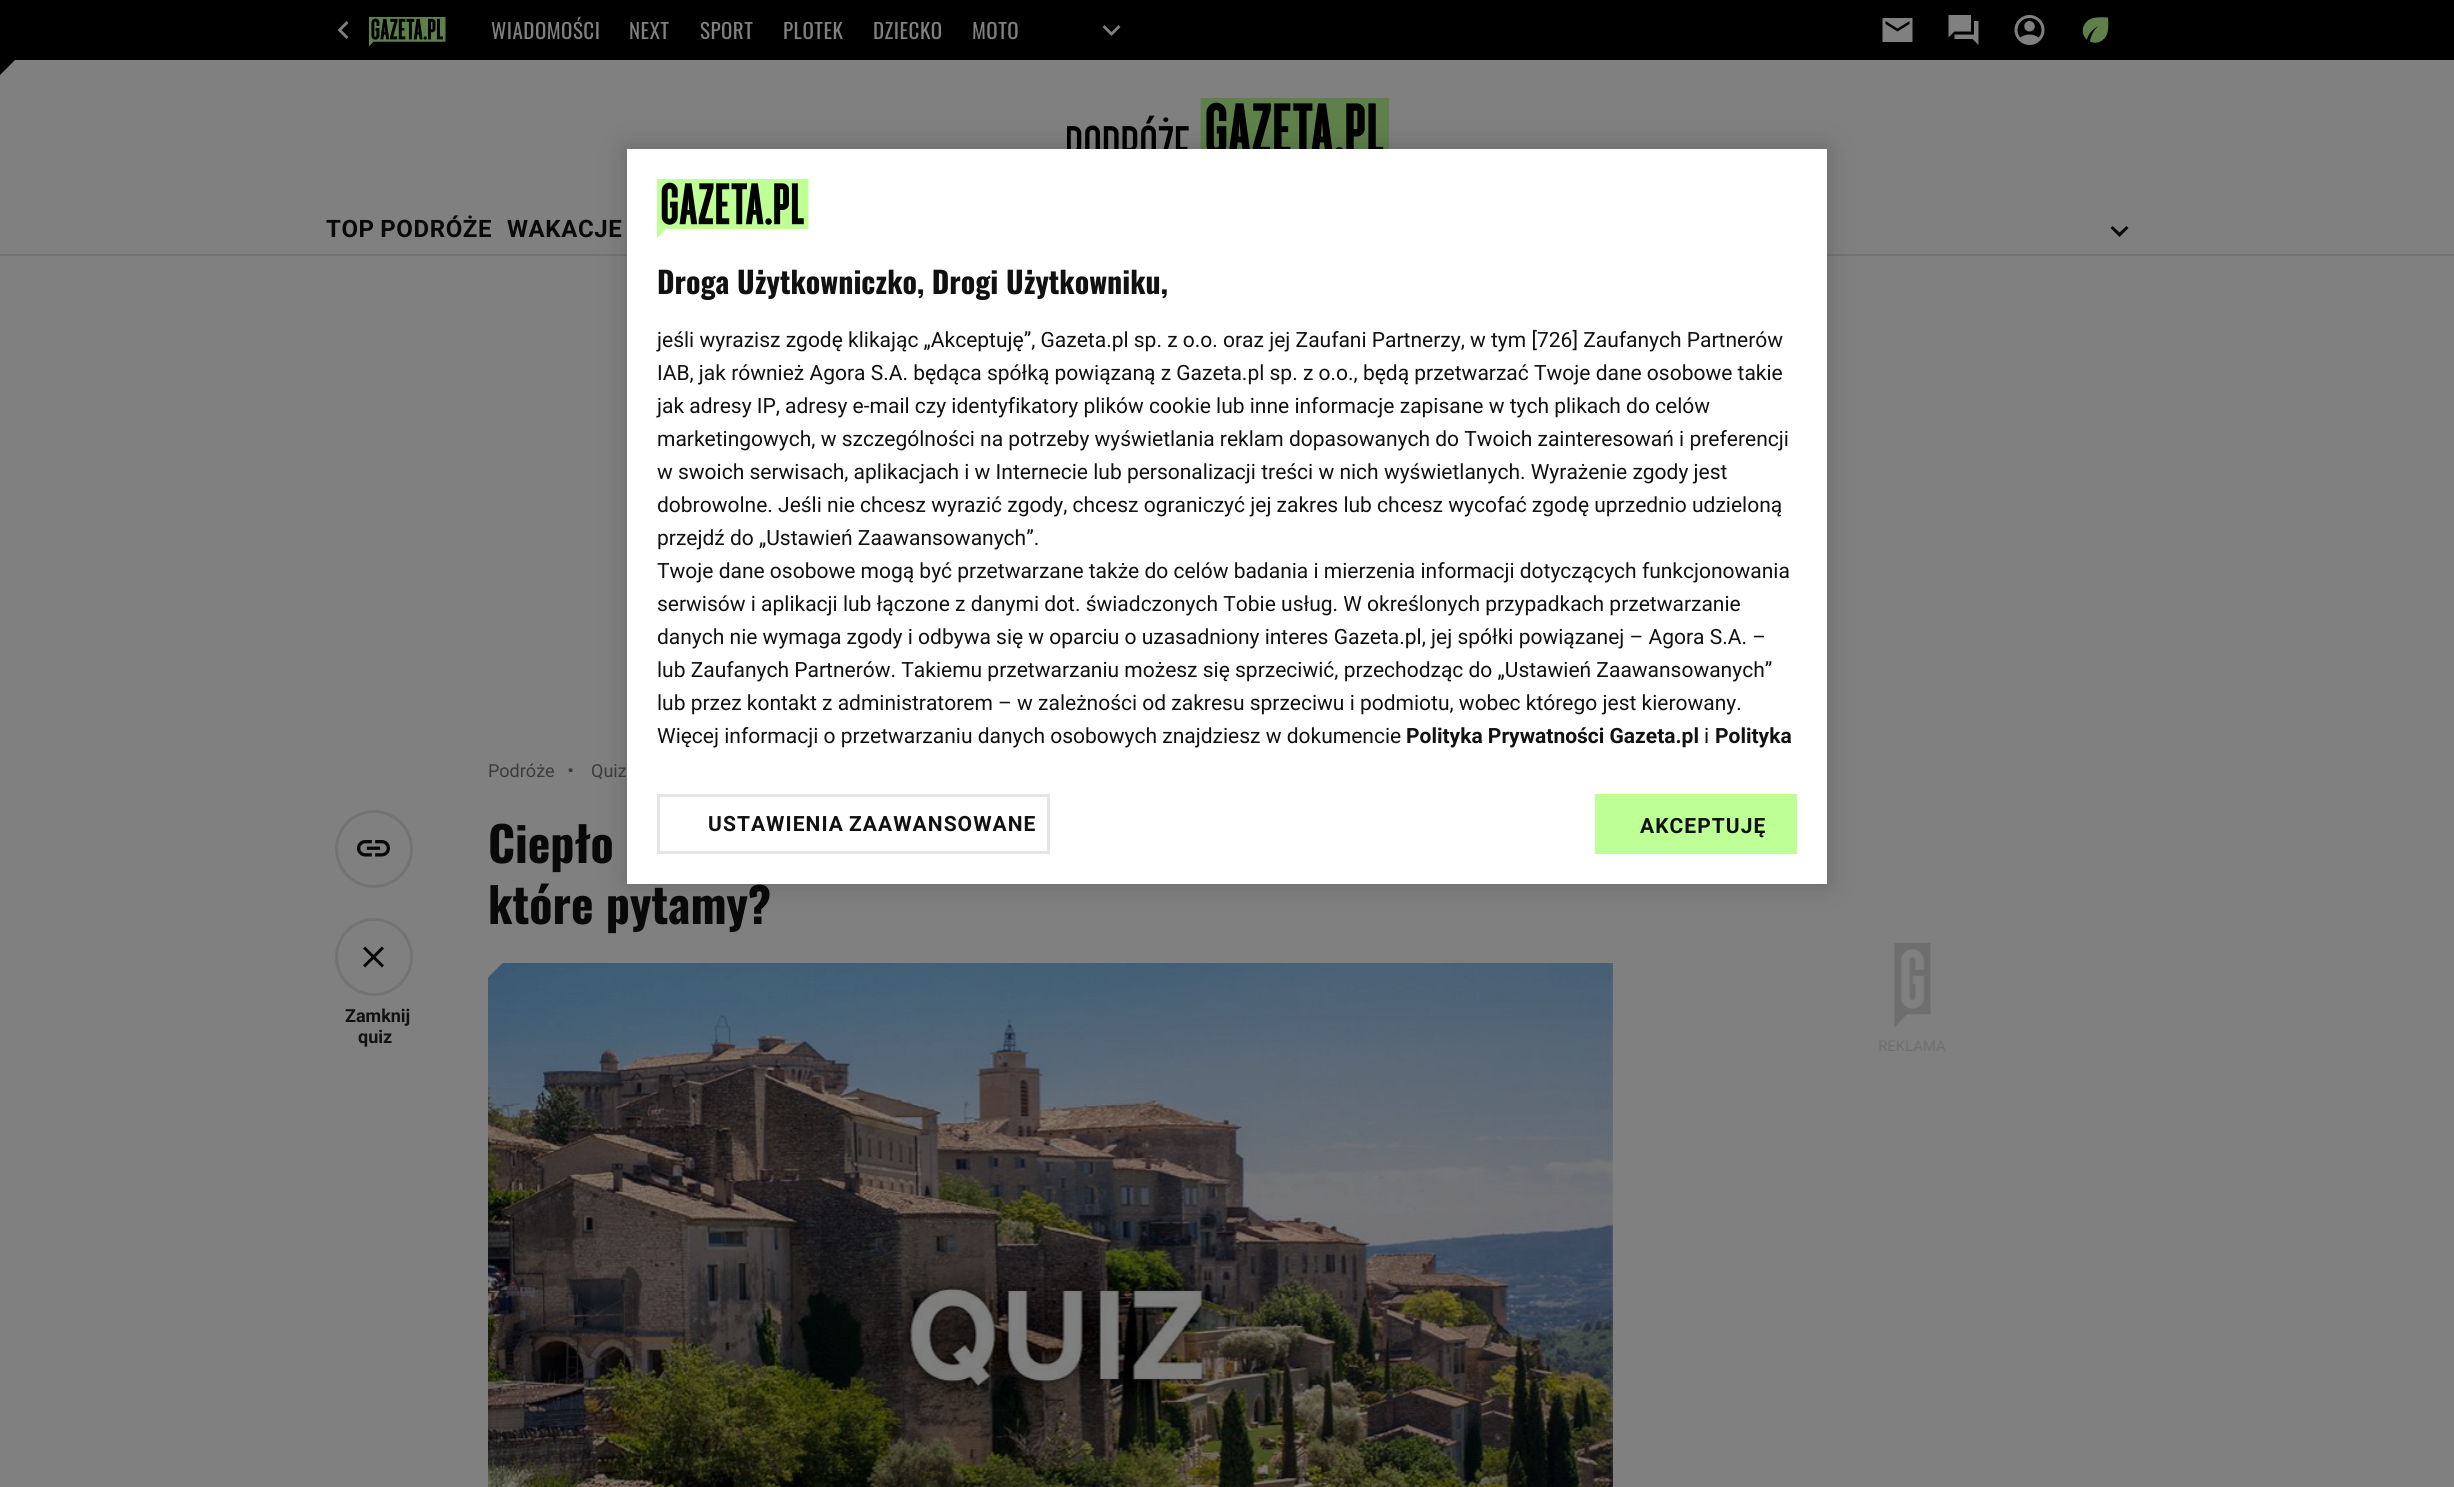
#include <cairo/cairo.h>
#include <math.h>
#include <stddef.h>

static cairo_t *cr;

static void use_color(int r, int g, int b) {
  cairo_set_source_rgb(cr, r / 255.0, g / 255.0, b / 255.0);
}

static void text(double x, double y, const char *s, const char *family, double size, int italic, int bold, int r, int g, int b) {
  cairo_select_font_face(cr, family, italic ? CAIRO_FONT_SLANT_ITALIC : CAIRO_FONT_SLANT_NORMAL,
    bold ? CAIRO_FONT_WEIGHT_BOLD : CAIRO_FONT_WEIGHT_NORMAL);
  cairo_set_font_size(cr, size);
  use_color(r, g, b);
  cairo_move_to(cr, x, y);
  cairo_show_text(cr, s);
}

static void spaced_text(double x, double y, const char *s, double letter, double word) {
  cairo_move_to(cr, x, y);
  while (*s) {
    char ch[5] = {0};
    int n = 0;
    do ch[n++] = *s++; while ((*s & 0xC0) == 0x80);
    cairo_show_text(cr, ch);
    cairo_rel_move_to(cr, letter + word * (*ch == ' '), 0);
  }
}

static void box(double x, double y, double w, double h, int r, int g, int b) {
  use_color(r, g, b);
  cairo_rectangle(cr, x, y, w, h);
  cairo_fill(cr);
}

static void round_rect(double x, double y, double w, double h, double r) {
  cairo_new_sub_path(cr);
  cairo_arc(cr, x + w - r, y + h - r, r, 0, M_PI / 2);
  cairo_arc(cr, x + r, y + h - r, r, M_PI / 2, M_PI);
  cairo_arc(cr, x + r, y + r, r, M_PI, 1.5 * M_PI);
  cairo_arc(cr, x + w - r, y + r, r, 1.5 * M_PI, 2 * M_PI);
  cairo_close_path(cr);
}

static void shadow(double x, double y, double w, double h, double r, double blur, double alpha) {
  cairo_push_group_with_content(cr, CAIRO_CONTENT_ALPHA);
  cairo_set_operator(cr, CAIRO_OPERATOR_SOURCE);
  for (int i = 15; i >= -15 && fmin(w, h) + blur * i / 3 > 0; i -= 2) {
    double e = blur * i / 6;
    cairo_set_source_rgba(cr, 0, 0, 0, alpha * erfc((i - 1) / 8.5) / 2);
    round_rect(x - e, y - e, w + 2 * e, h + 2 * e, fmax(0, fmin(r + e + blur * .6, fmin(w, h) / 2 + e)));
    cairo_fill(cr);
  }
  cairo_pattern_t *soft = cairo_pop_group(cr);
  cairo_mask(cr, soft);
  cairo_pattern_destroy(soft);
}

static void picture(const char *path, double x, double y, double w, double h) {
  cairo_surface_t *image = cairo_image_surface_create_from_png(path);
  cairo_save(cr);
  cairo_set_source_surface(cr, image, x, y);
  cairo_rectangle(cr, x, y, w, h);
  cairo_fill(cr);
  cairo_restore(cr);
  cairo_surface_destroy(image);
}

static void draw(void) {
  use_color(128, 128, 128);
  cairo_paint(cr);
  box(0, 0, 2454, 60, 0, 0, 0);
  use_color(128, 128, 128);
  cairo_new_path(cr);
  cairo_move_to(cr, 348.5, 23);
  cairo_line_to(cr, 346.5, 21);
  cairo_line_to(cr, 337.5, 30);
  cairo_line_to(cr, 346.5, 39);
  cairo_line_to(cr, 348.5, 37);
  cairo_line_to(cr, 341.5, 30);
  cairo_close_path(cr);
  cairo_fill(cr);
  picture("img_01.png", 369, 17, 77, 30);
  cairo_new_path(cr);
  cairo_move_to(cr, 1118.5, 25);
  cairo_line_to(cr, 1111.5, 32);
  cairo_line_to(cr, 1104.5, 25);
  cairo_line_to(cr, 1102.5, 27);
  cairo_line_to(cr, 1111.5, 36);
  cairo_line_to(cr, 1120.5, 27);
  cairo_close_path(cr);
  cairo_fill(cr);
  cairo_new_path(cr);
  cairo_move_to(cr, 1909.5, 21);
  cairo_line_to(cr, 1909.5, 24);
  cairo_line_to(cr, 1897.5, 31.5);
  cairo_line_to(cr, 1885.5, 24);
  cairo_line_to(cr, 1885.5, 21);
  cairo_line_to(cr, 1897.5, 28.5);
  cairo_close_path(cr);
  cairo_move_to(cr, 1882.5, 42);
  cairo_line_to(cr, 1912.5, 42);
  cairo_line_to(cr, 1912.5, 18);
  cairo_line_to(cr, 1882.5, 18);
  cairo_close_path(cr);
  cairo_fill(cr);
  picture("img_02.png", 1948, 15, 31, 30);
  picture("img_03.png", 2014, 15, 31, 30);
  picture("img_04.png", 2082, 17, 27, 26);
  use_color(0, 0, 0);
  cairo_new_path(cr);
  cairo_move_to(cr, 0, 60);
  cairo_line_to(cr, 15, 60);
  cairo_line_to(cr, 0, 75);
  cairo_close_path(cr);
  cairo_fill(cr);
  box(0, 254, 2454, 2, 115, 115, 115);
  picture("img_05.png", 1067, 98, 322, 51);
  use_color(9, 9, 9);
  cairo_new_path(cr);
  cairo_move_to(cr, 2126.5, 226);
  cairo_line_to(cr, 2119.5, 232.5);
  cairo_line_to(cr, 2112.5, 226);
  cairo_line_to(cr, 2110.5, 228);
  cairo_line_to(cr, 2119.5, 237);
  cairo_line_to(cr, 2128.5, 228);
  cairo_close_path(cr);
  cairo_fill(cr);
  use_color(0, 0, 0);
  shadow(627, 149, 1200, 735, 0, 13.5, 0.2);
  cairo_arc(cr, 374, 849, 37.5, 0, 2 * M_PI);
  use_color(115, 115, 115);
  cairo_set_line_width(cr, 3);
  cairo_stroke(cr);
  picture("img_07.png", 357, 840, 33, 17);
  cairo_arc(cr, 374, 957, 37.5, 0, 2 * M_PI);
  cairo_stroke(cr);
  picture("img_08.png", 363, 946, 21, 22);
  picture("img_09.png", 488, 963, 1125, 524);
  use_color(128, 128, 128);
  cairo_new_path(cr);
  cairo_move_to(cr, 487.5, 963);
  cairo_line_to(cr, 502.5, 963);
  cairo_line_to(cr, 487.5, 978);
  cairo_close_path(cr);
  cairo_fill(cr);
  picture("img_10.png", 1879, 943, 67, 108);
  cairo_select_font_face(cr, "Oswald", CAIRO_FONT_SLANT_NORMAL, CAIRO_FONT_WEIGHT_NORMAL);
  cairo_set_font_size(cr, 21);
  spaced_text(491, 39, "WIADOMOŚCI", 0.5, 0);
  spaced_text(629, 39, "NEXT", 0.5, 0);
  spaced_text(700, 39, "SPORT", 0.5, 0);
  spaced_text(783, 39, "PLOTEK", 0.5, 0);
  spaced_text(873, 39, "DZIECKO", 0.5, 0);
  spaced_text(972, 39, "MOTO", 0.5, 0);
  cairo_select_font_face(cr, "Roboto", CAIRO_FONT_SLANT_NORMAL, CAIRO_FONT_WEIGHT_BOLD);
  cairo_set_font_size(cr, 24);
  use_color(9, 9, 9);
  spaced_text(326, 237, "TOP PODRÓŻE", 0.6, -1);
  spaced_text(507, 237, "WAKACJE", 0.6, -1);
  text(488, 777, "Podróże", "Roboto", 18, 0, 0, 59, 59, 59);
  text(566, 783, "·", "Roboto", 36, 0, 0, 59, 59, 59);
  text(591, 777, "Quiz", "Roboto", 18, 0, 0, 59, 59, 59);
  text(488, 863, "Ciepło", "Oswald", 48, 0, 1, 9, 9, 9);
  text(488, 924, "które pytamy?", "Oswald", 48, 0, 1, 9, 9, 9);
  box(627, 149, 1200, 735, 255, 255, 255);
  box(1595, 794, 202, 60, 190, 255, 150);
  cairo_select_font_face(cr, "Roboto", CAIRO_FONT_SLANT_NORMAL, CAIRO_FONT_WEIGHT_BOLD);
  cairo_set_font_size(cr, 21);
  use_color(17, 17, 17);
  spaced_text(1640, 833, "AKCEPTUJĘ", 1.05, 0);
  text(1715, 743, "Polityka", "Roboto", 21, 0, 1, 17, 17, 17);
  text(1704, 743, "i", "Roboto", 21, 0, 0, 17, 17, 17);
  text(1406, 743, "Polityka Prywatności Gazeta.pl", "Roboto", 21, 0, 1, 17, 17, 17);
  text(657, 743, "Więcej informacji o przetwarzaniu danych osobowych znajdziesz w dokumencie", "Roboto", 21, 0, 0, 17, 17, 17);
  text(657, 710, "lub przez kontakt z administratorem – w zależności od zakresu sprzeciwu i podmiotu, wobec którego jest kierowany.", "Roboto", 21, 0, 0, 17, 17, 17);
  text(657, 677, "lub Zaufanych Partnerów. Takiemu przetwarzaniu możesz się sprzeciwić, przechodząc do „Ustawień Zaawansowanych”", "Roboto", 21, 0, 0, 17, 17, 17);
  text(657, 644, "danych nie wymaga zgody i odbywa się w oparciu o uzasadniony interes Gazeta.pl, jej spółki powiązanej – Agora S.A. –", "Roboto", 21, 0, 0, 17, 17, 17);
  text(657, 611, "serwisów i aplikacji lub łączone z danymi dot. świadczonych Tobie usług. W określonych przypadkach przetwarzanie", "Roboto", 21, 0, 0, 17, 17, 17);
  text(657, 578, "Twoje dane osobowe mogą być przetwarzane także do celów badania i mierzenia informacji dotyczących funkcjonowania", "Roboto", 21, 0, 0, 17, 17, 17);
  text(657, 545, "przejdź do „Ustawień Zaawansowanych”.", "Roboto", 21, 0, 0, 17, 17, 17);
  text(657, 512, "dobrowolne. Jeśli nie chcesz wyrazić zgody, chcesz ograniczyć jej zakres lub chcesz wycofać zgodę uprzednio udzieloną", "Roboto", 21, 0, 0, 17, 17, 17);
  text(657, 479, "w swoich serwisach, aplikacjach i w Internecie lub personalizacji treści w nich wyświetlanych. Wyrażenie zgody jest", "Roboto", 21, 0, 0, 17, 17, 17);
  text(657, 446, "marketingowych, w szczególności na potrzeby wyświetlania reklam dopasowanych do Twoich zainteresowań i preferencji", "Roboto", 21, 0, 0, 17, 17, 17);
  text(657, 413, "jak adresy IP, adresy e-mail czy identyfikatory plików cookie lub inne informacje zapisane w tych plikach do celów", "Roboto", 21, 0, 0, 17, 17, 17);
  text(657, 380, "IAB, jak również Agora S.A. będąca spółką powiązaną z Gazeta.pl sp. z o.o., będą przetwarzać Twoje dane osobowe takie", "Roboto", 21, 0, 0, 17, 17, 17);
  text(657, 347, "jeśli wyrazisz zgodę klikając „Akceptuję”, Gazeta.pl sp. z o.o. oraz jej Zaufani Partnerzy, w tym [726] Zaufanych Partnerów", "Roboto", 21, 0, 0, 17, 17, 17);
  text(657, 294, "Droga Użytkowniczko, Drogi Użytkowniku,", "Oswald", 30, 0, 1, 17, 17, 17);
  picture("img_06.png", 657, 179, 152, 60);
  cairo_rectangle(cr, 658.5, 795.5, 390, 57);
  use_color(229, 229, 229);
  cairo_stroke(cr);
  cairo_select_font_face(cr, "Roboto", CAIRO_FONT_SLANT_NORMAL, CAIRO_FONT_WEIGHT_BOLD);
  cairo_set_font_size(cr, 21);
  use_color(17, 17, 17);
  spaced_text(708, 831, "USTAWIENIA ZAAWANSOWANE", 1.05, -1);
  text(345, 1022, "Zamknij", "Roboto", 18, 0, 1, 17, 17, 17);
  text(358, 1043, "quiz", "Roboto", 18, 0, 1, 17, 17, 17);
}

int main(void) {
  cairo_surface_t *surface = cairo_image_surface_create(CAIRO_FORMAT_RGB24, 2454, 1487);
  cr = cairo_create(surface);
  cairo_font_options_t *options = cairo_font_options_create();
  cairo_font_options_set_hint_metrics(options, CAIRO_HINT_METRICS_OFF);
  cairo_font_options_set_hint_style(options, CAIRO_HINT_STYLE_NONE);
  cairo_set_font_options(cr, options);
  cairo_set_miter_limit(cr, 4);
  draw();
  cairo_surface_write_to_png(surface, "out.png");
  cairo_font_options_destroy(options);
  cairo_destroy(cr);
  cairo_surface_destroy(surface);
  return 0;
}
